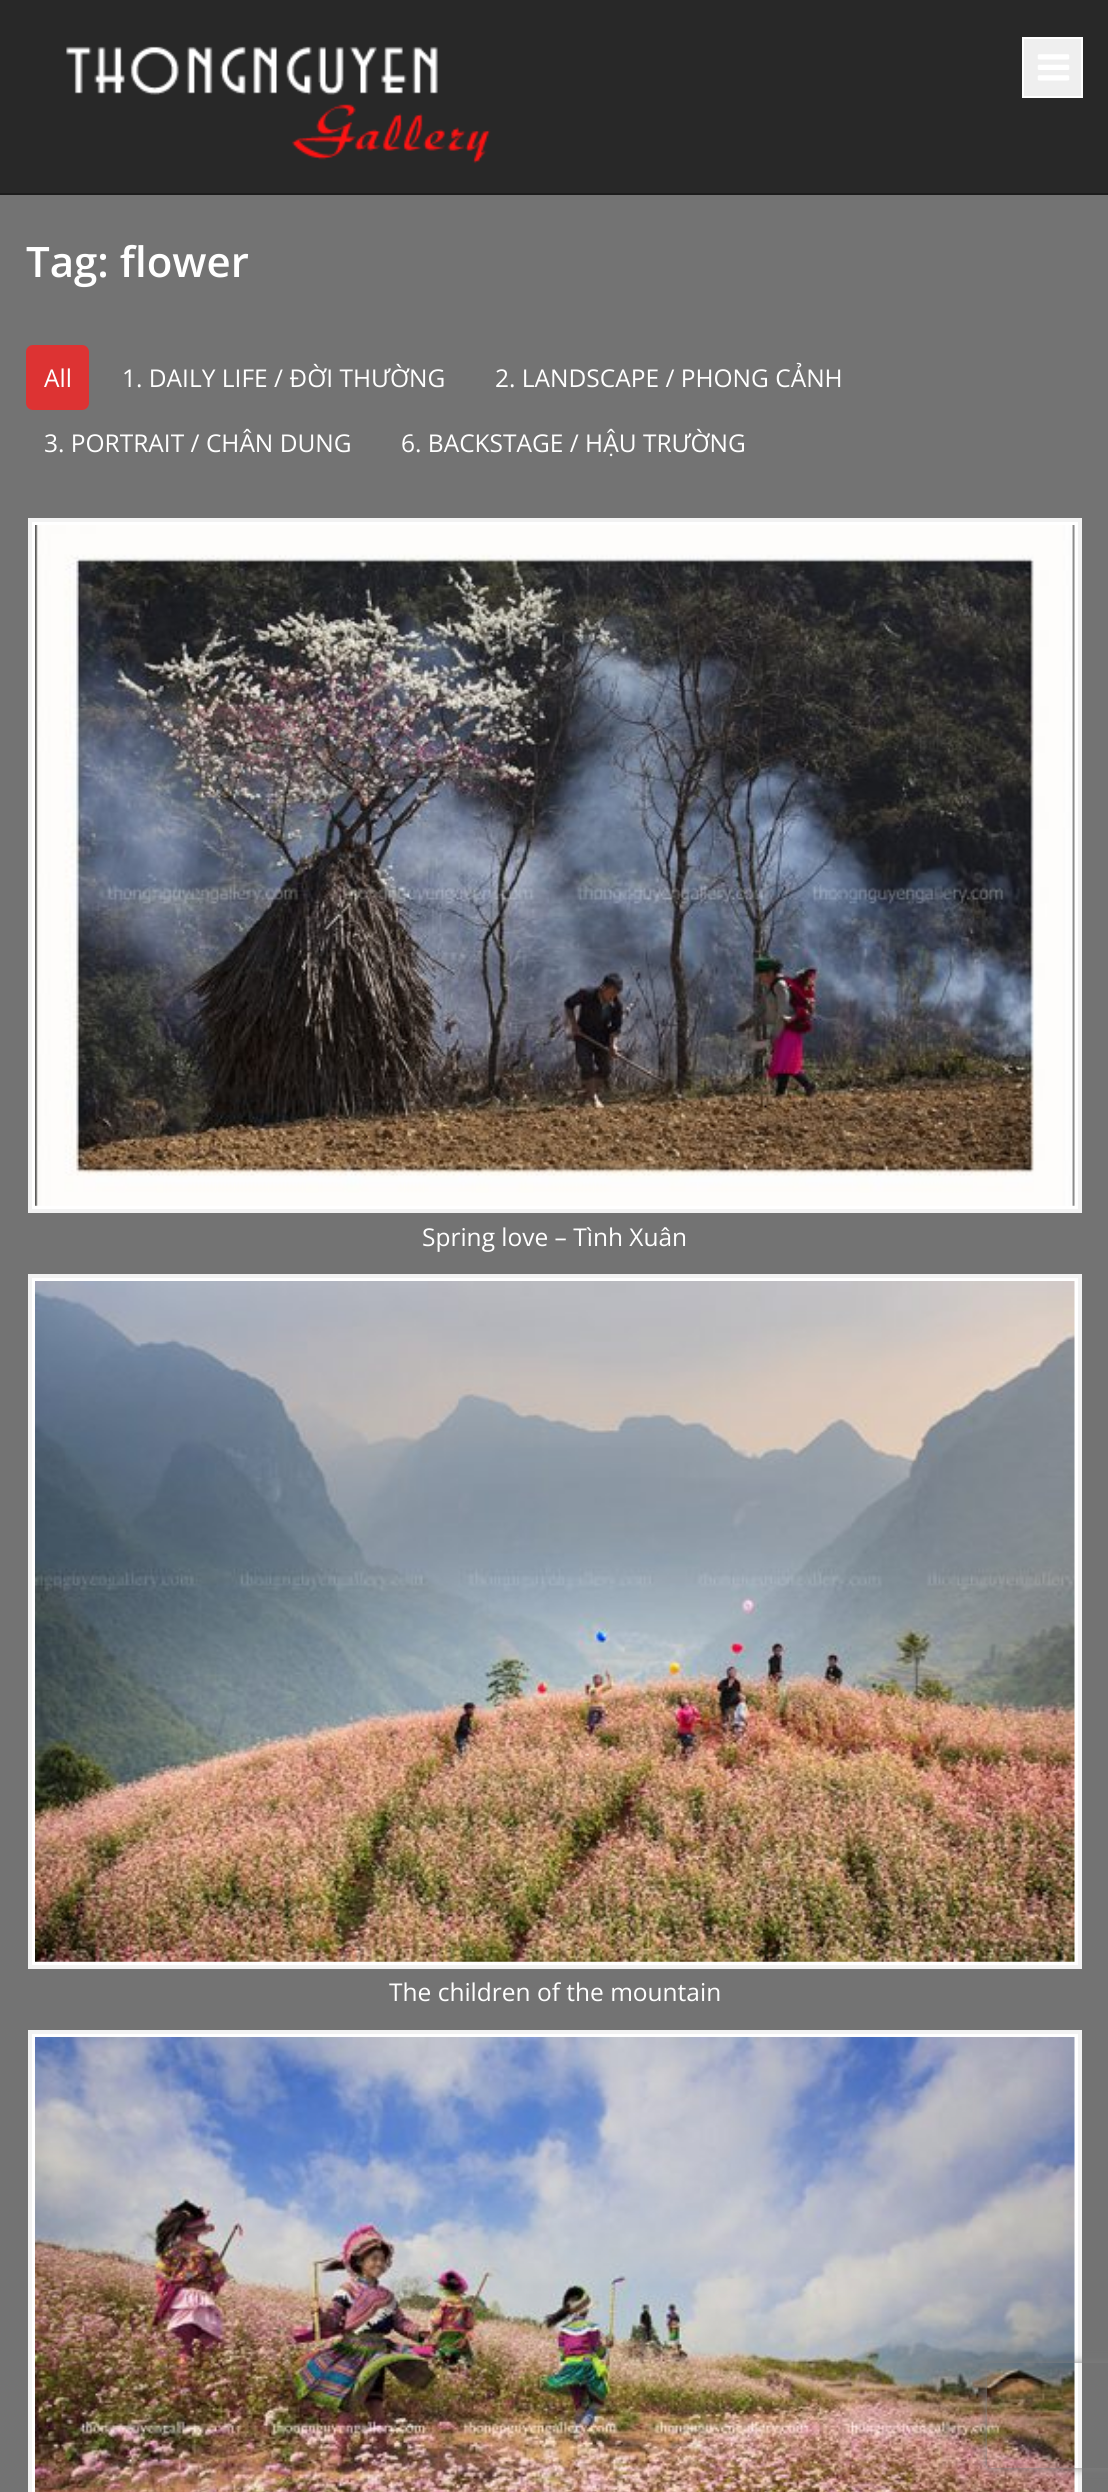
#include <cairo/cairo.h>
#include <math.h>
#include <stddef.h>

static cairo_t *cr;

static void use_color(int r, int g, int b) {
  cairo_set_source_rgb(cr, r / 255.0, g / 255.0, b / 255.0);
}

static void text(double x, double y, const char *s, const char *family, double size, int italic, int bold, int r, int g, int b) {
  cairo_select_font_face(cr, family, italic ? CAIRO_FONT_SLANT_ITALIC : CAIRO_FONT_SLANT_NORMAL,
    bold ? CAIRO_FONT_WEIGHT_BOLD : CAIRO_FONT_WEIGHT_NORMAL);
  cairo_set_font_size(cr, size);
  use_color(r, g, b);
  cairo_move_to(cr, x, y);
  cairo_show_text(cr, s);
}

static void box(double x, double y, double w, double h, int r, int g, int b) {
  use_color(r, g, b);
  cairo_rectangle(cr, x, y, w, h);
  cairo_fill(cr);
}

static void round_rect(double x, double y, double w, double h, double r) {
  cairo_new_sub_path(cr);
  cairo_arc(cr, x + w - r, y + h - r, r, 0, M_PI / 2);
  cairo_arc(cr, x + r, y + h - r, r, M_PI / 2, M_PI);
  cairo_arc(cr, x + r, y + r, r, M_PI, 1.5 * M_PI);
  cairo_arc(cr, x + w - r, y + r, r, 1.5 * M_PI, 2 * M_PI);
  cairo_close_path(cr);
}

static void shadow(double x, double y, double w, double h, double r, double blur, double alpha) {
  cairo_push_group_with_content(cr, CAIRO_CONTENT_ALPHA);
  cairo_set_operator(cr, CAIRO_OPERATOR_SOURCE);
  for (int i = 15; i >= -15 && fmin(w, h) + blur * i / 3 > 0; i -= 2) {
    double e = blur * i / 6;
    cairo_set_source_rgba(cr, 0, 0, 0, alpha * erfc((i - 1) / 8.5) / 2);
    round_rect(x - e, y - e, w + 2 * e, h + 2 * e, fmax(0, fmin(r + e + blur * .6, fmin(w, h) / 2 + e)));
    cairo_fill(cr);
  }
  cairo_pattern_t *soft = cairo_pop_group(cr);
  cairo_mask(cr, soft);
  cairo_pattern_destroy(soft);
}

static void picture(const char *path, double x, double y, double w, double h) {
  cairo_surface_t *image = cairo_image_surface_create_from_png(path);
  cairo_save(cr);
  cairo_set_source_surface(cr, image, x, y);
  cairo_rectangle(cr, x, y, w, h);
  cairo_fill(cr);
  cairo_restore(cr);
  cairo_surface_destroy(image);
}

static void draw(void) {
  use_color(40, 40, 40);
  cairo_paint(cr);
  picture("img_01.png", 66, 46, 425, 118);
  use_color(239, 239, 239);
  cairo_rectangle(cr, 1023, 38, 59, 59);
  cairo_fill_preserve(cr);
  use_color(255, 255, 255);
  cairo_stroke(cr);
  picture("img_02.png", 1037, 54, 33, 27);
  box(0, 193, 1108, 2, 28, 28, 28);
  box(0, 195, 1108, 2297, 115, 115, 115);
  use_color(221, 51, 51);
  round_rect(26, 345, 63, 65, 7);
  cairo_fill(cr);
  use_color(255, 255, 255);
  cairo_rectangle(cr, 30, 520, 1050, 691);
  cairo_fill_preserve(cr);
  use_color(242, 242, 242);
  cairo_set_line_width(cr, 4);
  cairo_stroke(cr);
  picture("img_03.png", 35, 525, 1040, 681);
  use_color(255, 255, 255);
  cairo_rectangle(cr, 30, 1276, 1050, 691);
  cairo_fill_preserve(cr);
  use_color(242, 242, 242);
  cairo_stroke(cr);
  picture("img_04.png", 35, 1281, 1040, 681);
  use_color(255, 255, 255);
  cairo_rectangle(cr, 30, 2032, 1050, 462);
  cairo_fill_preserve(cr);
  use_color(242, 242, 242);
  cairo_stroke(cr);
  picture("img_05.png", 35, 2037, 1040, 455);
  cairo_save(cr);
  cairo_set_fill_rule(cr, CAIRO_FILL_RULE_EVEN_ODD);
  cairo_new_path(cr);
  cairo_move_to(cr, 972, 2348);
  cairo_line_to(cr, 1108, 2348);
  cairo_line_to(cr, 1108, 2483);
  cairo_line_to(cr, 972, 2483);
  cairo_close_path(cr);
  cairo_move_to(cr, 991, 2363);
  cairo_line_to(cr, 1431, 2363);
  cairo_curve_to(cr, 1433, 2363, 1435, 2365, 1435, 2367);
  cairo_line_to(cr, 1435, 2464);
  cairo_curve_to(cr, 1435, 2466, 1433, 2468, 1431, 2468);
  cairo_line_to(cr, 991, 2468);
  cairo_curve_to(cr, 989, 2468, 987, 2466, 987, 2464);
  cairo_line_to(cr, 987, 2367);
  cairo_curve_to(cr, 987, 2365, 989, 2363, 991, 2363);
  cairo_close_path(cr);
  cairo_clip(cr);
  use_color(128, 128, 128);
  shadow(987, 2363, 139, 105, 4, 4.5, 1);
  cairo_restore(cr);
  text(26, 277, "Tag: flower", "Open Sans SemiBold", 42, 0, 0, 255, 255, 255);
  text(44, 387, "All", "Open Sans", 24.5, 0, 0, 255, 255, 255);
  text(122, 387, "1. DAILY LIFE / ĐỜI THƯỜNG", "Open Sans", 24.5, 0, 0, 255, 255, 255);
  text(495, 387, "2. LANDSCAPE / PHONG CẢNH", "Open Sans", 24.5, 0, 0, 255, 255, 255);
  text(44, 452, "3. PORTRAIT / CHÂN DUNG", "Open Sans", 24.5, 0, 0, 255, 255, 255);
  text(401, 452, "6. BACKSTAGE / HẬU TRƯỜNG", "Open Sans", 24.5, 0, 0, 255, 255, 255);
  text(422, 1246, "Spring love – Tình Xuân", "Open Sans", 24.5, 0, 0, 255, 255, 255);
  text(389, 2001, "The children of the mountain", "Open Sans", 24.5, 0, 0, 255, 255, 255);
}

int main(void) {
  cairo_surface_t *surface = cairo_image_surface_create(CAIRO_FORMAT_RGB24, 1108, 2492);
  cr = cairo_create(surface);
  cairo_font_options_t *options = cairo_font_options_create();
  cairo_font_options_set_hint_metrics(options, CAIRO_HINT_METRICS_OFF);
  cairo_font_options_set_hint_style(options, CAIRO_HINT_STYLE_NONE);
  cairo_set_font_options(cr, options);
  cairo_set_miter_limit(cr, 4);
  draw();
  cairo_surface_write_to_png(surface, "out.png");
  cairo_font_options_destroy(options);
  cairo_destroy(cr);
  cairo_surface_destroy(surface);
  return 0;
}
